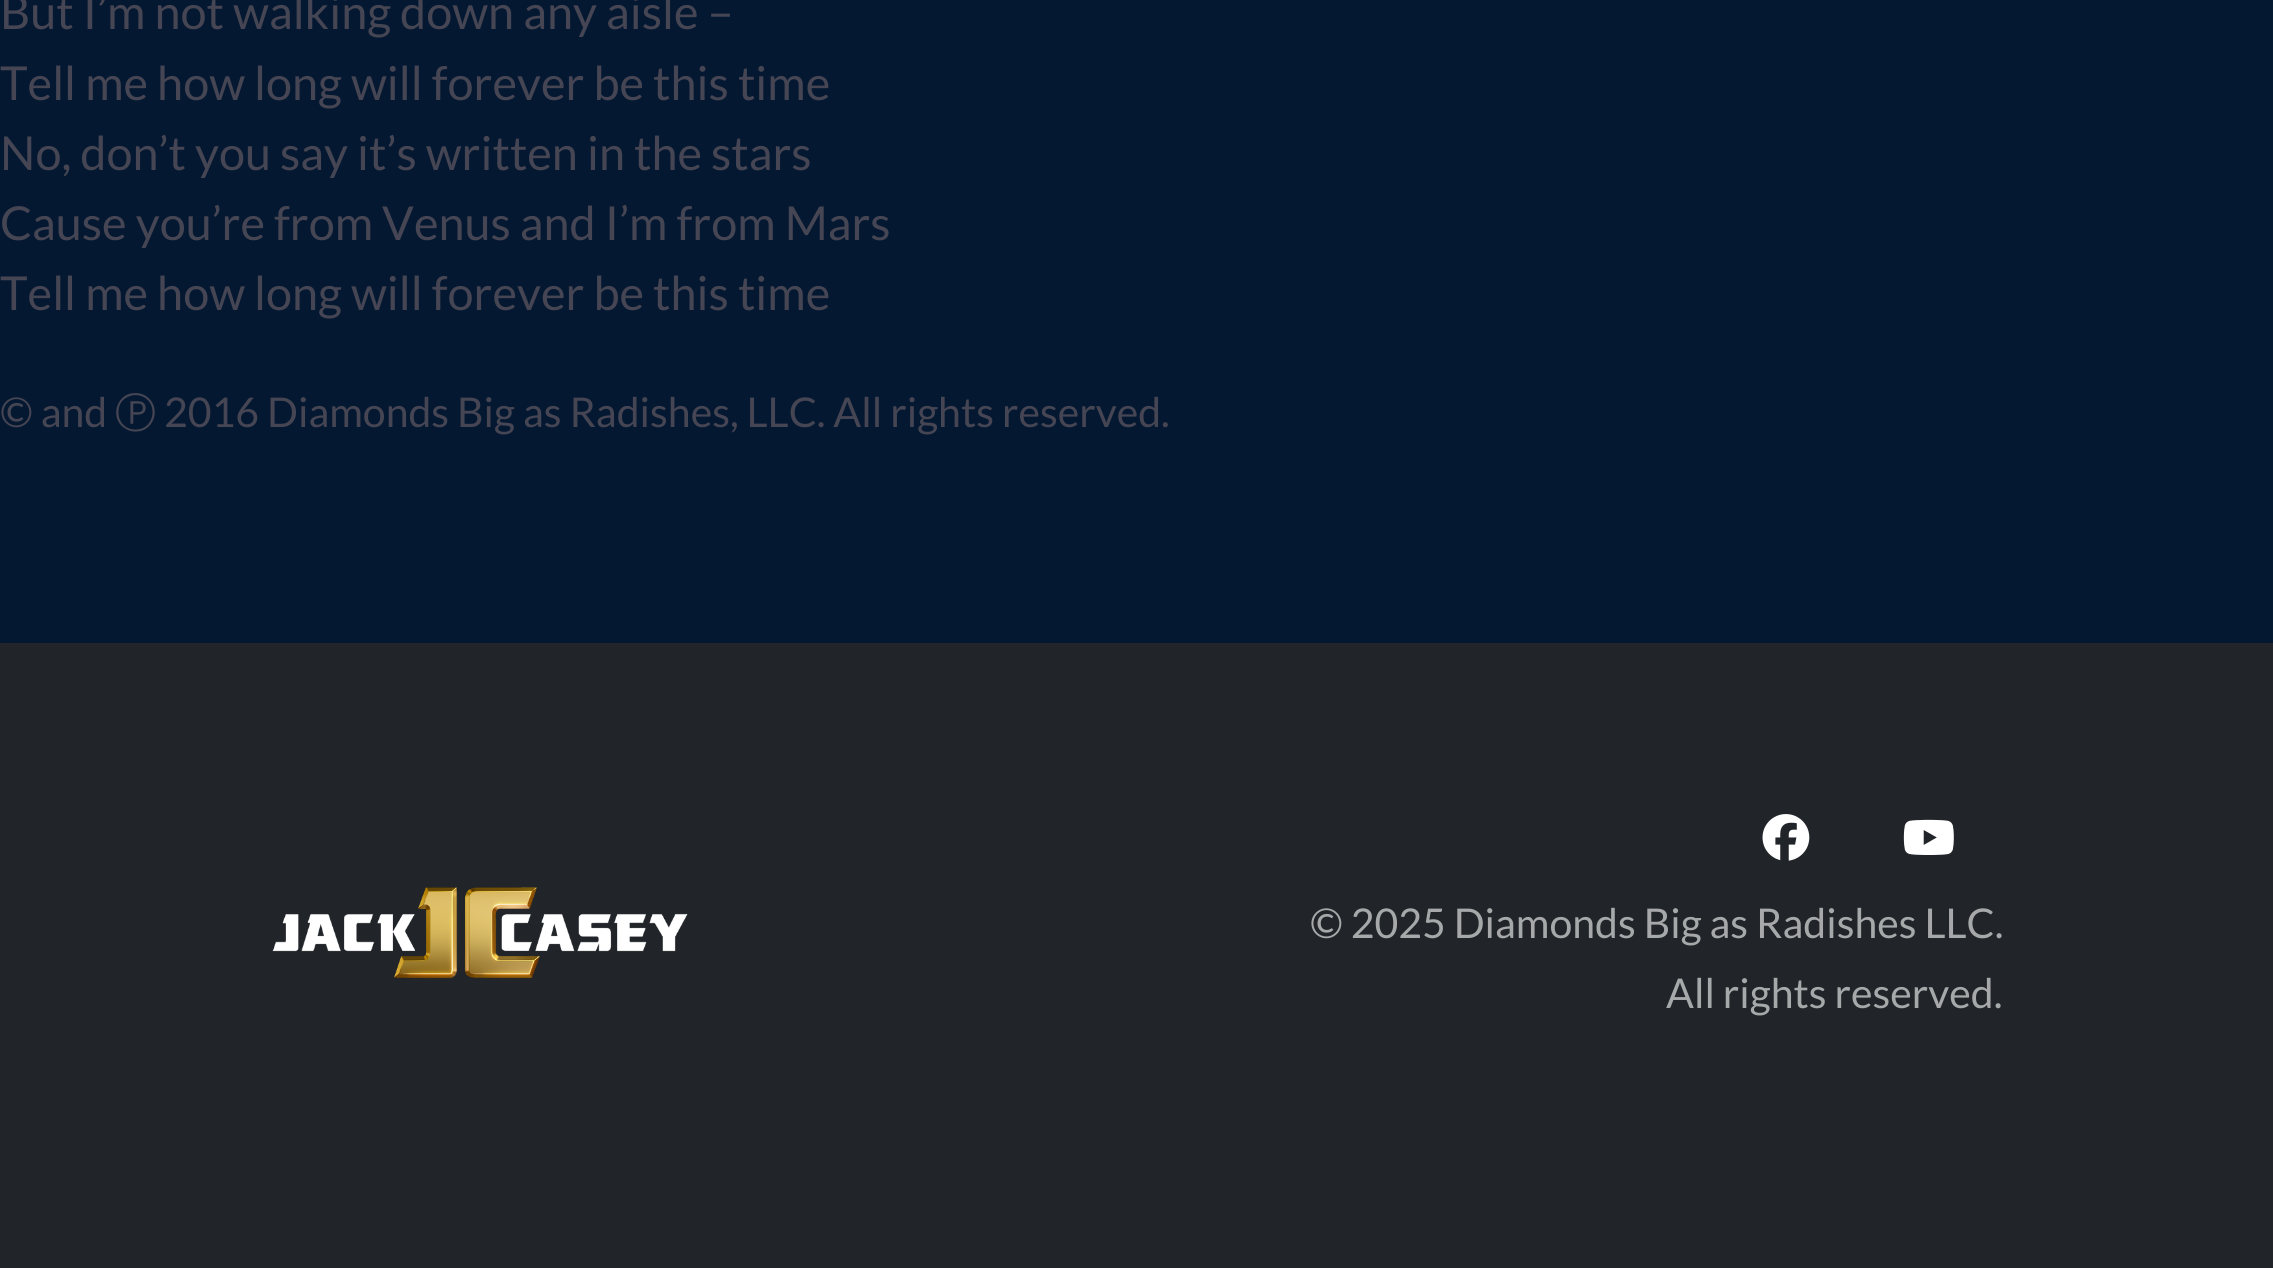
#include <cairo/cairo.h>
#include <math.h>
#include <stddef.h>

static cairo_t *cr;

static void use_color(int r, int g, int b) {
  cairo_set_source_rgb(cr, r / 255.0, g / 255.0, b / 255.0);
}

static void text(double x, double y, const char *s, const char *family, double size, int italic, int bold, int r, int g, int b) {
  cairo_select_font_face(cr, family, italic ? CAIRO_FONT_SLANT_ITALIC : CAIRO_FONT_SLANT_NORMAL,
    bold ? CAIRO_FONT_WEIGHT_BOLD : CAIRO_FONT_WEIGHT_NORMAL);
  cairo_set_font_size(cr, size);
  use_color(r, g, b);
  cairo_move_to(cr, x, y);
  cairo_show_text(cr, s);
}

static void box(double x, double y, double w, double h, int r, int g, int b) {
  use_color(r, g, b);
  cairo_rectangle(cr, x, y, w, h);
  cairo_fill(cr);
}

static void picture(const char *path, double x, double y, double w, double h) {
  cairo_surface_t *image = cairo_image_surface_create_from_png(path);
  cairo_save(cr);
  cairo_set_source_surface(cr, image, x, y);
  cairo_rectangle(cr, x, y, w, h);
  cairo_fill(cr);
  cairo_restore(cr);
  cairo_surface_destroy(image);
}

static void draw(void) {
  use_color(4, 24, 49);
  cairo_paint(cr);
  box(0, 643, 2273, 625, 33, 37, 41);
  picture("img_01.png", 272, 887, 416, 93);
  picture("img_02.png", 1762, 814, 48, 47);
  picture("img_03.png", 1903, 819, 51, 36);
  text(0, 29, "But I’m not walking down any aisle –", "Lato", 46.8, 0, 0, 69, 69, 83);
  text(0, 100, "Tell me how long will forever be this time", "Lato", 46.8, 0, 0, 69, 69, 83);
  text(0, 170, "No, don’t you say it’s written in the stars", "Lato", 46.8, 0, 0, 69, 69, 83);
  text(0, 240, "Cause you’re from Venus and I’m from Mars", "Lato", 46.8, 0, 0, 69, 69, 83);
  text(0, 310, "Tell me how long will forever be this time", "Lato", 46.8, 0, 0, 69, 69, 83);
  text(0, 427, "© and", "Lato", 41, 0, 0, 69, 69, 83);
  text(115, 427, "Ⓟ", "WenQuanYi Zen Hei Medium", 41, 0, 0, 69, 69, 83);
  text(164, 427, "2016 Diamonds Big as Radishes, LLC. All rights reserved.", "Lato", 41, 0, 0, 69, 69, 83);
  text(1310, 938, "© 2025 Diamonds Big as Radishes LLC.", "Lato", 41, 0, 0, 166, 168, 169);
  text(1666, 1008, "All rights reserved.", "Lato", 41, 0, 0, 166, 168, 169);
}

int main(void) {
  cairo_surface_t *surface = cairo_image_surface_create(CAIRO_FORMAT_RGB24, 2273, 1268);
  cr = cairo_create(surface);
  cairo_font_options_t *options = cairo_font_options_create();
  cairo_font_options_set_hint_metrics(options, CAIRO_HINT_METRICS_OFF);
  cairo_font_options_set_hint_style(options, CAIRO_HINT_STYLE_NONE);
  cairo_set_font_options(cr, options);
  cairo_set_miter_limit(cr, 4);
  draw();
  cairo_surface_write_to_png(surface, "out.png");
  cairo_font_options_destroy(options);
  cairo_destroy(cr);
  cairo_surface_destroy(surface);
  return 0;
}
